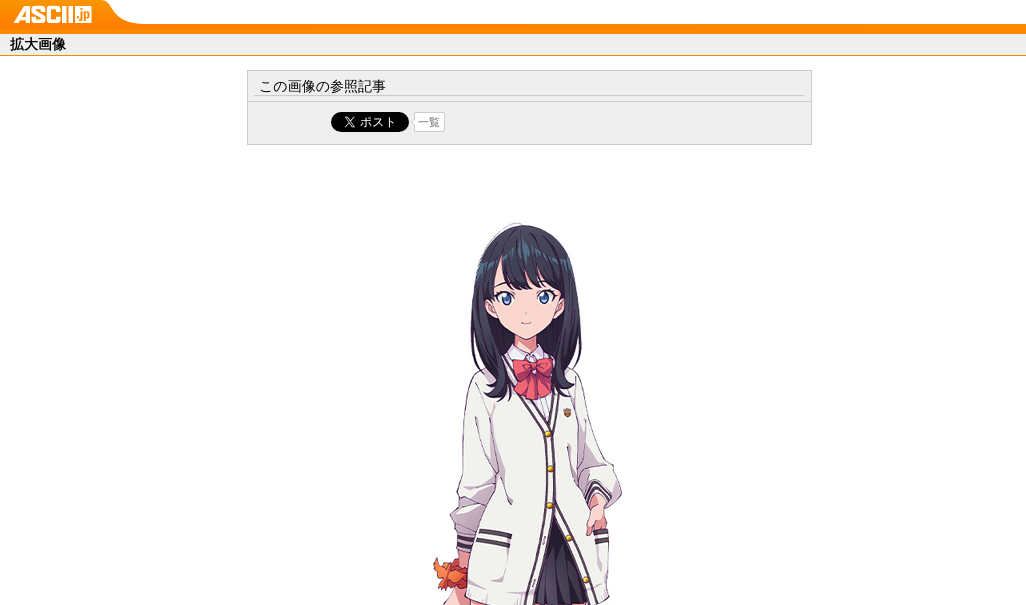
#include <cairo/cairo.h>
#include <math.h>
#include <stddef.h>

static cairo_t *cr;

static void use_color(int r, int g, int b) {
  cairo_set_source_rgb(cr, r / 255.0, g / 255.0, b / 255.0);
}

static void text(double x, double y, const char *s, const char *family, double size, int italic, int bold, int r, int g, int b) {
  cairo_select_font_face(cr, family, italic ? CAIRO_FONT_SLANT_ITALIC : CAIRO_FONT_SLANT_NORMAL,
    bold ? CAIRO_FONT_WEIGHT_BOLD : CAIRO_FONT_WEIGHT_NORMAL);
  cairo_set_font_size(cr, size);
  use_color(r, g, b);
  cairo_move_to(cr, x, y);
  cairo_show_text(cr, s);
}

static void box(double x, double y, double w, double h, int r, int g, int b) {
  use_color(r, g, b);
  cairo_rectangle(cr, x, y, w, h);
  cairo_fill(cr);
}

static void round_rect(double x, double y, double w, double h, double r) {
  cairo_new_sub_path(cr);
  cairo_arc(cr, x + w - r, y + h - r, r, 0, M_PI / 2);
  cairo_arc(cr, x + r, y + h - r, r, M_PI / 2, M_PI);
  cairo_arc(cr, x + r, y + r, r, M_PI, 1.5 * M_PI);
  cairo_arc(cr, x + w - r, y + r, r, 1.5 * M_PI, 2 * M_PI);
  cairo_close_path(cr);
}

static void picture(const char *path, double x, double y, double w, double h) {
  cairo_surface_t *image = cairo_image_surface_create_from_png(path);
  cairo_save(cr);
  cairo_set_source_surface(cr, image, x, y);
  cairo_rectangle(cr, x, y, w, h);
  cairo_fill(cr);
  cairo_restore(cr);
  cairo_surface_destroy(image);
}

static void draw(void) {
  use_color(255, 255, 255);
  cairo_paint(cr);
  picture("img_01.png", 0, 0, 1026, 29);
  picture("img_02.png", 13, 5, 79, 18);
  box(0, 34, 1026, 21, 239, 239, 239);
  box(0, 29, 1026, 5, 252, 137, 0);
  box(0, 55, 1026, 1, 252, 137, 0);
  use_color(239, 239, 239);
  cairo_rectangle(cr, 247.5, 70.5, 564, 74);
  cairo_fill_preserve(cr);
  use_color(204, 204, 204);
  cairo_set_line_width(cr, 1);
  cairo_stroke(cr);
  box(254, 95, 550, 1, 204, 204, 204);
  box(248, 101, 563, 1, 204, 204, 204);
  picture("img_03.png", 331, 112, 78, 20);
  use_color(255, 255, 255);
  round_rect(414.5, 112.5, 30, 19, 1.5);
  cairo_fill_preserve(cr);
  use_color(204, 204, 204);
  cairo_stroke(cr);
  cairo_new_path(cr);
  cairo_move_to(cr, 415, 118);
  cairo_line_to(cr, 415, 126);
  cairo_line_to(cr, 411, 122);
  cairo_close_path(cr);
  cairo_fill(cr);
  use_color(255, 255, 255);
  cairo_new_path(cr);
  cairo_move_to(cr, 415, 119);
  cairo_line_to(cr, 415, 125);
  cairo_line_to(cr, 412, 122);
  cairo_close_path(cr);
  cairo_fill(cr);
  picture("img_04.png", 431, 222, 192, 383);
  text(10, 49, "拡大画像", "WenQuanYi Zen Hei", 14, 0, 1, 0, 0, 0);
  text(259, 91, "この画像の参照記事", "WenQuanYi Zen Hei Medium", 14, 0, 0, 0, 0, 0);
  text(418, 126, "一覧", "WenQuanYi Zen Hei Medium", 11, 0, 0, 102, 102, 102);
}

int main(void) {
  cairo_surface_t *surface = cairo_image_surface_create(CAIRO_FORMAT_RGB24, 1026, 605);
  cr = cairo_create(surface);
  cairo_font_options_t *options = cairo_font_options_create();
  cairo_font_options_set_hint_metrics(options, CAIRO_HINT_METRICS_OFF);
  cairo_font_options_set_hint_style(options, CAIRO_HINT_STYLE_NONE);
  cairo_set_font_options(cr, options);
  cairo_set_miter_limit(cr, 4);
  draw();
  cairo_surface_write_to_png(surface, "out.png");
  cairo_font_options_destroy(options);
  cairo_destroy(cr);
  cairo_surface_destroy(surface);
  return 0;
}
